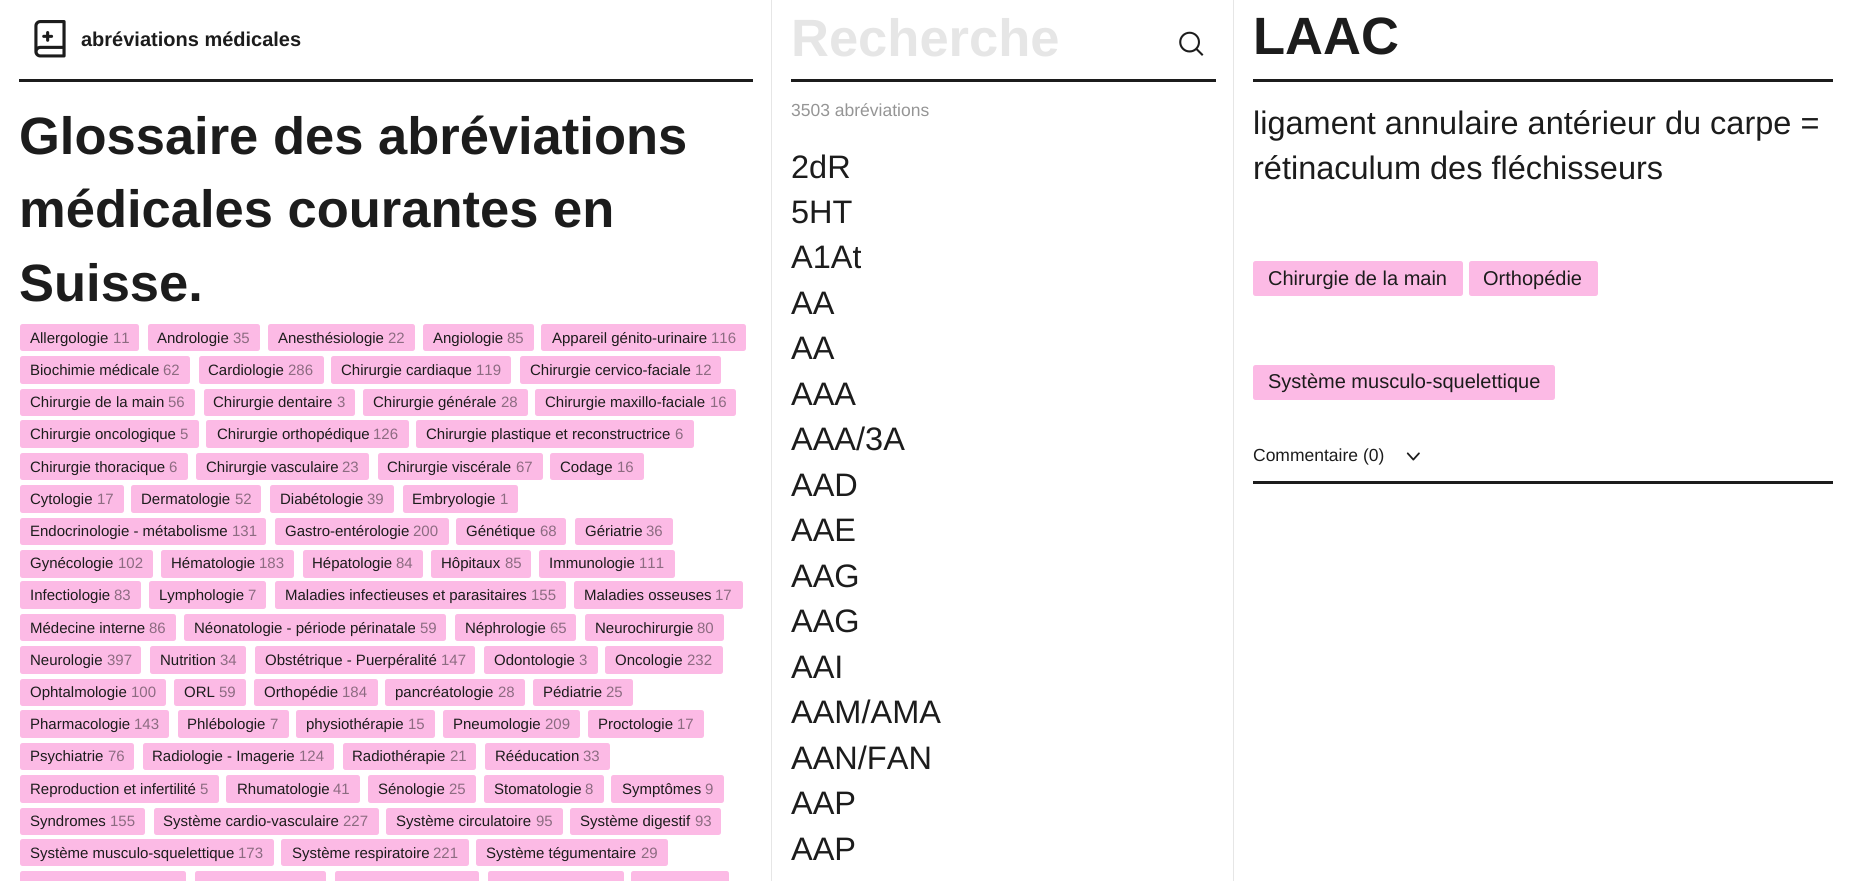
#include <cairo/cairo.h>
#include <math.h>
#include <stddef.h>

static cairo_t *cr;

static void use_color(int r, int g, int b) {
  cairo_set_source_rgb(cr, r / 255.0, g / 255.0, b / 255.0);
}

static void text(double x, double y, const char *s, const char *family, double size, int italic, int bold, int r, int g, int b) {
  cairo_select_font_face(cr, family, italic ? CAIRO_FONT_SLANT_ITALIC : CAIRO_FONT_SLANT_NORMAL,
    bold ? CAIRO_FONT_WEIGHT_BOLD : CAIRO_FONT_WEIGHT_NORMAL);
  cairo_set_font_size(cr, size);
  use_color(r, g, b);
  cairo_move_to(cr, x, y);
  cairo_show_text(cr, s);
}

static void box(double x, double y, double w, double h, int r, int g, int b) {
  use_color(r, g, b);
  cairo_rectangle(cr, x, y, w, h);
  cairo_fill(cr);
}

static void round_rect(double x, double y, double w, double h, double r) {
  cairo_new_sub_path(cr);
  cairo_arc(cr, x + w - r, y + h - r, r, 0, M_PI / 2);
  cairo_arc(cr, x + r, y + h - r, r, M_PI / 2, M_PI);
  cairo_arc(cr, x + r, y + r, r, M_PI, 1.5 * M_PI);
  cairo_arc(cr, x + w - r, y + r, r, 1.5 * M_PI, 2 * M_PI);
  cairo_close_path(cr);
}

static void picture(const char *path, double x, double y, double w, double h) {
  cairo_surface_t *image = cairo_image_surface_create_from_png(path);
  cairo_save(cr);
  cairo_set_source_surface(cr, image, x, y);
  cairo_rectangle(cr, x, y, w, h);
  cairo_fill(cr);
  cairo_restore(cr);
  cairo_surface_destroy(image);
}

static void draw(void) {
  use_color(255, 255, 255);
  cairo_paint(cr);
  box(19, 79, 734, 3, 28, 28, 28);
  picture("img_01.png", 34, 20, 32, 38);
  use_color(252, 186, 229);
  round_rect(20, 324, 119, 27, 2.5);
  cairo_fill(cr);
  round_rect(148, 324, 112, 27, 2.5);
  cairo_fill(cr);
  round_rect(268, 324, 147, 27, 2.5);
  cairo_fill(cr);
  round_rect(423, 324, 111, 27, 2.5);
  cairo_fill(cr);
  round_rect(541, 324, 205, 27, 2.5);
  cairo_fill(cr);
  round_rect(20, 356, 170, 28, 2.5);
  cairo_fill(cr);
  round_rect(199, 356, 125, 28, 2.5);
  cairo_fill(cr);
  round_rect(331, 356, 180, 28, 2.5);
  cairo_fill(cr);
  round_rect(520, 356, 201, 28, 2.5);
  cairo_fill(cr);
  round_rect(20, 389, 175, 27, 2.5);
  cairo_fill(cr);
  round_rect(204, 389, 151, 27, 2.5);
  cairo_fill(cr);
  round_rect(363, 389, 165, 27, 2.5);
  cairo_fill(cr);
  round_rect(535, 389, 201, 27, 2.5);
  cairo_fill(cr);
  round_rect(20, 420, 179, 28, 2.5);
  cairo_fill(cr);
  round_rect(206, 420, 203, 28, 2.5);
  cairo_fill(cr);
  round_rect(416, 420, 278, 28, 2.5);
  cairo_fill(cr);
  round_rect(20, 453, 168, 27, 2.5);
  cairo_fill(cr);
  round_rect(196, 453, 173, 27, 2.5);
  cairo_fill(cr);
  round_rect(378, 453, 165, 27, 2.5);
  cairo_fill(cr);
  round_rect(550, 453, 94, 27, 2.5);
  cairo_fill(cr);
  round_rect(20, 485, 104, 28, 2.5);
  cairo_fill(cr);
  round_rect(131, 485, 130, 28, 2.5);
  cairo_fill(cr);
  round_rect(270, 485, 124, 28, 2.5);
  cairo_fill(cr);
  round_rect(403, 485, 115, 28, 2.5);
  cairo_fill(cr);
  round_rect(20, 518, 246, 27, 2.5);
  cairo_fill(cr);
  round_rect(275, 518, 174, 27, 2.5);
  cairo_fill(cr);
  round_rect(456, 518, 110, 27, 2.5);
  cairo_fill(cr);
  round_rect(575, 518, 98, 27, 2.5);
  cairo_fill(cr);
  round_rect(20, 550, 133, 28, 2.5);
  cairo_fill(cr);
  round_rect(161, 550, 133, 28, 2.5);
  cairo_fill(cr);
  round_rect(303, 550, 120, 28, 2.5);
  cairo_fill(cr);
  round_rect(431, 550, 100, 28, 2.5);
  cairo_fill(cr);
  round_rect(539, 550, 136, 28, 2.5);
  cairo_fill(cr);
  round_rect(20, 581, 121, 28, 2.5);
  cairo_fill(cr);
  round_rect(149, 581, 117, 28, 2.5);
  cairo_fill(cr);
  round_rect(275, 581, 291, 28, 2.5);
  cairo_fill(cr);
  round_rect(574, 581, 169, 28, 2.5);
  cairo_fill(cr);
  round_rect(20, 614, 156, 27, 2.5);
  cairo_fill(cr);
  round_rect(184, 614, 262, 27, 2.5);
  cairo_fill(cr);
  round_rect(455, 614, 121, 27, 2.5);
  cairo_fill(cr);
  round_rect(585, 614, 139, 27, 2.5);
  cairo_fill(cr);
  round_rect(20, 646, 121, 28, 2.5);
  cairo_fill(cr);
  round_rect(150, 646, 96, 28, 2.5);
  cairo_fill(cr);
  round_rect(255, 646, 220, 28, 2.5);
  cairo_fill(cr);
  round_rect(484, 646, 114, 28, 2.5);
  cairo_fill(cr);
  round_rect(605, 646, 118, 28, 2.5);
  cairo_fill(cr);
  round_rect(20, 679, 146, 27, 2.5);
  cairo_fill(cr);
  round_rect(174, 679, 72, 27, 2.5);
  cairo_fill(cr);
  round_rect(254, 679, 124, 27, 2.5);
  cairo_fill(cr);
  round_rect(385, 679, 140, 27, 2.5);
  cairo_fill(cr);
  round_rect(533, 679, 100, 27, 2.5);
  cairo_fill(cr);
  round_rect(20, 710, 149, 28, 2.5);
  cairo_fill(cr);
  round_rect(178, 710, 111, 28, 2.5);
  cairo_fill(cr);
  round_rect(296, 710, 139, 28, 2.5);
  cairo_fill(cr);
  round_rect(443, 710, 137, 28, 2.5);
  cairo_fill(cr);
  round_rect(588, 710, 116, 28, 2.5);
  cairo_fill(cr);
  round_rect(20, 743, 114, 27, 2.5);
  cairo_fill(cr);
  round_rect(143, 743, 191, 27, 2.5);
  cairo_fill(cr);
  round_rect(343, 743, 133, 27, 2.5);
  cairo_fill(cr);
  round_rect(485, 743, 125, 27, 2.5);
  cairo_fill(cr);
  round_rect(20, 775, 199, 28, 2.5);
  cairo_fill(cr);
  round_rect(226, 775, 134, 28, 2.5);
  cairo_fill(cr);
  round_rect(368, 775, 108, 28, 2.5);
  cairo_fill(cr);
  round_rect(484, 775, 120, 28, 2.5);
  cairo_fill(cr);
  round_rect(611, 775, 113, 28, 2.5);
  cairo_fill(cr);
  round_rect(20, 808, 125, 27, 2.5);
  cairo_fill(cr);
  round_rect(154, 808, 225, 27, 2.5);
  cairo_fill(cr);
  round_rect(386, 808, 177, 27, 2.5);
  cairo_fill(cr);
  round_rect(570, 808, 151, 27, 2.5);
  cairo_fill(cr);
  round_rect(20, 839, 254, 27, 2.5);
  cairo_fill(cr);
  round_rect(281, 839, 188, 27, 2.5);
  cairo_fill(cr);
  round_rect(476, 839, 192, 27, 2.5);
  cairo_fill(cr);
  cairo_new_path(cr);
  cairo_move_to(cr, 22.5, 871);
  cairo_line_to(cr, 183.5, 871);
  cairo_curve_to(cr, 185, 871, 186, 872, 186, 873.5);
  cairo_line_to(cr, 186, 881);
  cairo_line_to(cr, 20, 881);
  cairo_line_to(cr, 20, 873.5);
  cairo_curve_to(cr, 20, 872, 21, 871, 22.5, 871);
  cairo_close_path(cr);
  cairo_fill(cr);
  cairo_new_path(cr);
  cairo_move_to(cr, 197.5, 871);
  cairo_line_to(cr, 323.5, 871);
  cairo_curve_to(cr, 325, 871, 326, 872, 326, 873.5);
  cairo_line_to(cr, 326, 881);
  cairo_line_to(cr, 195, 881);
  cairo_line_to(cr, 195, 873.5);
  cairo_curve_to(cr, 195, 872, 196, 871, 197.5, 871);
  cairo_close_path(cr);
  cairo_fill(cr);
  cairo_new_path(cr);
  cairo_move_to(cr, 337.5, 871);
  cairo_line_to(cr, 476.5, 871);
  cairo_curve_to(cr, 478, 871, 479, 872, 479, 873.5);
  cairo_line_to(cr, 479, 881);
  cairo_line_to(cr, 335, 881);
  cairo_line_to(cr, 335, 873.5);
  cairo_curve_to(cr, 335, 872, 336, 871, 337.5, 871);
  cairo_close_path(cr);
  cairo_fill(cr);
  cairo_new_path(cr);
  cairo_move_to(cr, 490.5, 871);
  cairo_line_to(cr, 621.5, 871);
  cairo_curve_to(cr, 623, 871, 624, 872, 624, 873.5);
  cairo_line_to(cr, 624, 881);
  cairo_line_to(cr, 488, 881);
  cairo_line_to(cr, 488, 873.5);
  cairo_curve_to(cr, 488, 872, 489, 871, 490.5, 871);
  cairo_close_path(cr);
  cairo_fill(cr);
  cairo_new_path(cr);
  cairo_move_to(cr, 633.5, 871);
  cairo_line_to(cr, 726.5, 871);
  cairo_curve_to(cr, 728, 871, 729, 872, 729, 873.5);
  cairo_line_to(cr, 729, 881);
  cairo_line_to(cr, 631, 881);
  cairo_line_to(cr, 631, 873.5);
  cairo_curve_to(cr, 631, 872, 632, 871, 633.5, 871);
  cairo_close_path(cr);
  cairo_fill(cr);
  box(1233, 0, 1, 881, 230, 230, 230);
  box(771, 0, 1, 881, 230, 230, 230);
  box(791, 79, 425, 3, 28, 28, 28);
  picture("img_02.png", 1179, 31, 25, 25);
  box(1253, 79, 580, 3, 28, 28, 28);
  use_color(252, 186, 229);
  round_rect(1253, 261, 210, 35, 2.5);
  cairo_fill(cr);
  round_rect(1469, 261, 129, 35, 2.5);
  cairo_fill(cr);
  round_rect(1253, 365, 302, 35, 2.5);
  cairo_fill(cr);
  picture("img_03.png", 1406, 452, 14, 9);
  box(1253, 481, 580, 3, 28, 28, 28);
  text(81, 46, "abréviations médicales", "Liberation Sans", 20, 0, 1, 28, 28, 28);
  text(19, 154, "Glossaire des abréviations", "Liberation Sans", 52.5, 0, 1, 28, 28, 28);
  text(19, 227, "médicales courantes en", "Liberation Sans", 52.5, 0, 1, 28, 28, 28);
  text(19, 301, "Suisse.", "Liberation Sans", 52.5, 0, 1, 28, 28, 28);
  text(30, 343, "Allergologie", "Liberation Sans", 15, 0, 0, 28, 28, 28);
  text(113, 343, "11", "Liberation Sans", 15, 0, 0, 140, 107, 129);
  text(157, 343, "Andrologie", "Liberation Sans", 15, 0, 0, 28, 28, 28);
  text(233, 343, "35", "Liberation Sans", 15, 0, 0, 140, 107, 129);
  text(278, 343, "Anesthésiologie", "Liberation Sans", 15, 0, 0, 28, 28, 28);
  text(388, 343, "22", "Liberation Sans", 15, 0, 0, 140, 107, 129);
  text(433, 343, "Angiologie", "Liberation Sans", 15, 0, 0, 28, 28, 28);
  text(507, 343, "85", "Liberation Sans", 15, 0, 0, 140, 107, 129);
  text(552, 343, "Appareil génito-urinaire", "Liberation Sans", 15, 0, 0, 28, 28, 28);
  text(711, 343, "116", "Liberation Sans", 15, 0, 0, 140, 107, 129);
  text(30, 375, "Biochimie médicale", "Liberation Sans", 15, 0, 0, 28, 28, 28);
  text(163, 375, "62", "Liberation Sans", 15, 0, 0, 140, 107, 129);
  text(208, 375, "Cardiologie", "Liberation Sans", 15, 0, 0, 28, 28, 28);
  text(288, 375, "286", "Liberation Sans", 15, 0, 0, 140, 107, 129);
  text(341, 375, "Chirurgie cardiaque", "Liberation Sans", 15, 0, 0, 28, 28, 28);
  text(476, 375, "119", "Liberation Sans", 15, 0, 0, 140, 107, 129);
  text(530, 375, "Chirurgie cervico-faciale", "Liberation Sans", 15, 0, 0, 28, 28, 28);
  text(695, 375, "12", "Liberation Sans", 15, 0, 0, 140, 107, 129);
  text(30, 407, "Chirurgie de la main", "Liberation Sans", 15, 0, 0, 28, 28, 28);
  text(168, 407, "56", "Liberation Sans", 15, 0, 0, 140, 107, 129);
  text(213, 407, "Chirurgie dentaire", "Liberation Sans", 15, 0, 0, 28, 28, 28);
  text(337, 407, "3", "Liberation Sans", 15, 0, 0, 140, 107, 129);
  text(373, 407, "Chirurgie générale", "Liberation Sans", 15, 0, 0, 28, 28, 28);
  text(501, 407, "28", "Liberation Sans", 15, 0, 0, 140, 107, 129);
  text(545, 407, "Chirurgie maxillo-faciale", "Liberation Sans", 15, 0, 0, 28, 28, 28);
  text(710, 407, "16", "Liberation Sans", 15, 0, 0, 140, 107, 129);
  text(30, 439, "Chirurgie oncologique", "Liberation Sans", 15, 0, 0, 28, 28, 28);
  text(180, 439, "5", "Liberation Sans", 15, 0, 0, 140, 107, 129);
  text(217, 439, "Chirurgie orthopédique", "Liberation Sans", 15, 0, 0, 28, 28, 28);
  text(373, 439, "126", "Liberation Sans", 15, 0, 0, 140, 107, 129);
  text(426, 439, "Chirurgie plastique et reconstructrice", "Liberation Sans", 15, 0, 0, 28, 28, 28);
  text(675, 439, "6", "Liberation Sans", 15, 0, 0, 140, 107, 129);
  text(30, 472, "Chirurgie thoracique", "Liberation Sans", 15, 0, 0, 28, 28, 28);
  text(169, 472, "6", "Liberation Sans", 15, 0, 0, 140, 107, 129);
  text(206, 472, "Chirurgie vasculaire", "Liberation Sans", 15, 0, 0, 28, 28, 28);
  text(342, 472, "23", "Liberation Sans", 15, 0, 0, 140, 107, 129);
  text(387, 472, "Chirurgie viscérale", "Liberation Sans", 15, 0, 0, 28, 28, 28);
  text(516, 472, "67", "Liberation Sans", 15, 0, 0, 140, 107, 129);
  text(560, 472, "Codage", "Liberation Sans", 15, 0, 0, 28, 28, 28);
  text(617, 472, "16", "Liberation Sans", 15, 0, 0, 140, 107, 129);
  text(30, 504, "Cytologie", "Liberation Sans", 15, 0, 0, 28, 28, 28);
  text(97, 504, "17", "Liberation Sans", 15, 0, 0, 140, 107, 129);
  text(141, 504, "Dermatologie", "Liberation Sans", 15, 0, 0, 28, 28, 28);
  text(235, 504, "52", "Liberation Sans", 15, 0, 0, 140, 107, 129);
  text(280, 504, "Diabétologie", "Liberation Sans", 15, 0, 0, 28, 28, 28);
  text(367, 504, "39", "Liberation Sans", 15, 0, 0, 140, 107, 129);
  text(412, 504, "Embryologie", "Liberation Sans", 15, 0, 0, 28, 28, 28);
  text(500, 504, "1", "Liberation Sans", 15, 0, 0, 140, 107, 129);
  text(30, 536, "Endocrinologie - métabolisme", "Liberation Sans", 15, 0, 0, 28, 28, 28);
  text(232, 536, "131", "Liberation Sans", 15, 0, 0, 140, 107, 129);
  text(285, 536, "Gastro-entérologie", "Liberation Sans", 15, 0, 0, 28, 28, 28);
  text(413, 536, "200", "Liberation Sans", 15, 0, 0, 140, 107, 129);
  text(466, 536, "Génétique", "Liberation Sans", 15, 0, 0, 28, 28, 28);
  text(540, 536, "68", "Liberation Sans", 15, 0, 0, 140, 107, 129);
  text(585, 536, "Gériatrie", "Liberation Sans", 15, 0, 0, 28, 28, 28);
  text(646, 536, "36", "Liberation Sans", 15, 0, 0, 140, 107, 129);
  text(30, 568, "Gynécologie", "Liberation Sans", 15, 0, 0, 28, 28, 28);
  text(118, 568, "102", "Liberation Sans", 15, 0, 0, 140, 107, 129);
  text(171, 568, "Hématologie", "Liberation Sans", 15, 0, 0, 28, 28, 28);
  text(259, 568, "183", "Liberation Sans", 15, 0, 0, 140, 107, 129);
  text(312, 568, "Hépatologie", "Liberation Sans", 15, 0, 0, 28, 28, 28);
  text(396, 568, "84", "Liberation Sans", 15, 0, 0, 140, 107, 129);
  text(441, 568, "Hôpitaux", "Liberation Sans", 15, 0, 0, 28, 28, 28);
  text(505, 568, "85", "Liberation Sans", 15, 0, 0, 140, 107, 129);
  text(549, 568, "Immunologie", "Liberation Sans", 15, 0, 0, 28, 28, 28);
  text(639, 568, "111", "Liberation Sans", 15, 0, 0, 140, 107, 129);
  text(30, 600, "Infectiologie", "Liberation Sans", 15, 0, 0, 28, 28, 28);
  text(114, 600, "83", "Liberation Sans", 15, 0, 0, 140, 107, 129);
  text(159, 600, "Lymphologie", "Liberation Sans", 15, 0, 0, 28, 28, 28);
  text(248, 600, "7", "Liberation Sans", 15, 0, 0, 140, 107, 129);
  text(285, 600, "Maladies infectieuses et parasitaires", "Liberation Sans", 15, 0, 0, 28, 28, 28);
  text(531, 600, "155", "Liberation Sans", 15, 0, 0, 140, 107, 129);
  text(584, 600, "Maladies osseuses", "Liberation Sans", 15, 0, 0, 28, 28, 28);
  text(715, 600, "17", "Liberation Sans", 15, 0, 0, 140, 107, 129);
  text(30, 633, "Médecine interne", "Liberation Sans", 15, 0, 0, 28, 28, 28);
  text(149, 633, "86", "Liberation Sans", 15, 0, 0, 140, 107, 129);
  text(194, 633, "Néonatologie - période périnatale", "Liberation Sans", 15, 0, 0, 28, 28, 28);
  text(420, 633, "59", "Liberation Sans", 15, 0, 0, 140, 107, 129);
  text(465, 633, "Néphrologie", "Liberation Sans", 15, 0, 0, 28, 28, 28);
  text(550, 633, "65", "Liberation Sans", 15, 0, 0, 140, 107, 129);
  text(595, 633, "Neurochirurgie", "Liberation Sans", 15, 0, 0, 28, 28, 28);
  text(697, 633, "80", "Liberation Sans", 15, 0, 0, 140, 107, 129);
  text(30, 665, "Neurologie", "Liberation Sans", 15, 0, 0, 28, 28, 28);
  text(107, 665, "397", "Liberation Sans", 15, 0, 0, 140, 107, 129);
  text(160, 665, "Nutrition", "Liberation Sans", 15, 0, 0, 28, 28, 28);
  text(220, 665, "34", "Liberation Sans", 15, 0, 0, 140, 107, 129);
  text(265, 665, "Obstétrique - Puerpéralité", "Liberation Sans", 15, 0, 0, 28, 28, 28);
  text(441, 665, "147", "Liberation Sans", 15, 0, 0, 140, 107, 129);
  text(494, 665, "Odontologie", "Liberation Sans", 15, 0, 0, 28, 28, 28);
  text(579, 665, "3", "Liberation Sans", 15, 0, 0, 140, 107, 129);
  text(615, 665, "Oncologie", "Liberation Sans", 15, 0, 0, 28, 28, 28);
  text(687, 665, "232", "Liberation Sans", 15, 0, 0, 140, 107, 129);
  text(30, 697, "Ophtalmologie", "Liberation Sans", 15, 0, 0, 28, 28, 28);
  text(131, 697, "100", "Liberation Sans", 15, 0, 0, 140, 107, 129);
  text(184, 697, "ORL", "Liberation Sans", 15, 0, 0, 28, 28, 28);
  text(219, 697, "59", "Liberation Sans", 15, 0, 0, 140, 107, 129);
  text(264, 697, "Orthopédie", "Liberation Sans", 15, 0, 0, 28, 28, 28);
  text(342, 697, "184", "Liberation Sans", 15, 0, 0, 140, 107, 129);
  text(395, 697, "pancréatologie", "Liberation Sans", 15, 0, 0, 28, 28, 28);
  text(498, 697, "28", "Liberation Sans", 15, 0, 0, 140, 107, 129);
  text(543, 697, "Pédiatrie", "Liberation Sans", 15, 0, 0, 28, 28, 28);
  text(606, 697, "25", "Liberation Sans", 15, 0, 0, 140, 107, 129);
  text(30, 729, "Pharmacologie", "Liberation Sans", 15, 0, 0, 28, 28, 28);
  text(134, 729, "143", "Liberation Sans", 15, 0, 0, 140, 107, 129);
  text(187, 729, "Phlébologie", "Liberation Sans", 15, 0, 0, 28, 28, 28);
  text(270, 729, "7", "Liberation Sans", 15, 0, 0, 140, 107, 129);
  text(306, 729, "physiothérapie", "Liberation Sans", 15, 0, 0, 28, 28, 28);
  text(408, 729, "15", "Liberation Sans", 15, 0, 0, 140, 107, 129);
  text(453, 729, "Pneumologie", "Liberation Sans", 15, 0, 0, 28, 28, 28);
  text(545, 729, "209", "Liberation Sans", 15, 0, 0, 140, 107, 129);
  text(598, 729, "Proctologie", "Liberation Sans", 15, 0, 0, 28, 28, 28);
  text(677, 729, "17", "Liberation Sans", 15, 0, 0, 140, 107, 129);
  text(30, 761, "Psychiatrie", "Liberation Sans", 15, 0, 0, 28, 28, 28);
  text(108, 761, "76", "Liberation Sans", 15, 0, 0, 140, 107, 129);
  text(152, 761, "Radiologie - Imagerie", "Liberation Sans", 15, 0, 0, 28, 28, 28);
  text(299, 761, "124", "Liberation Sans", 15, 0, 0, 140, 107, 129);
  text(352, 761, "Radiothérapie", "Liberation Sans", 15, 0, 0, 28, 28, 28);
  text(450, 761, "21", "Liberation Sans", 15, 0, 0, 140, 107, 129);
  text(495, 761, "Rééducation", "Liberation Sans", 15, 0, 0, 28, 28, 28);
  text(583, 761, "33", "Liberation Sans", 15, 0, 0, 140, 107, 129);
  text(30, 794, "Reproduction et infertilité", "Liberation Sans", 15, 0, 0, 28, 28, 28);
  text(200, 794, "5", "Liberation Sans", 15, 0, 0, 140, 107, 129);
  text(237, 794, "Rhumatologie", "Liberation Sans", 15, 0, 0, 28, 28, 28);
  text(333, 794, "41", "Liberation Sans", 15, 0, 0, 140, 107, 129);
  text(378, 794, "Sénologie", "Liberation Sans", 15, 0, 0, 28, 28, 28);
  text(449, 794, "25", "Liberation Sans", 15, 0, 0, 140, 107, 129);
  text(494, 794, "Stomatologie", "Liberation Sans", 15, 0, 0, 28, 28, 28);
  text(585, 794, "8", "Liberation Sans", 15, 0, 0, 140, 107, 129);
  text(622, 794, "Symptômes", "Liberation Sans", 15, 0, 0, 28, 28, 28);
  text(705, 794, "9", "Liberation Sans", 15, 0, 0, 140, 107, 129);
  text(30, 826, "Syndromes", "Liberation Sans", 15, 0, 0, 28, 28, 28);
  text(110, 826, "155", "Liberation Sans", 15, 0, 0, 140, 107, 129);
  text(163, 826, "Système cardio-vasculaire", "Liberation Sans", 15, 0, 0, 28, 28, 28);
  text(343, 826, "227", "Liberation Sans", 15, 0, 0, 140, 107, 129);
  text(396, 826, "Système circulatoire", "Liberation Sans", 15, 0, 0, 28, 28, 28);
  text(536, 826, "95", "Liberation Sans", 15, 0, 0, 140, 107, 129);
  text(580, 826, "Système digestif", "Liberation Sans", 15, 0, 0, 28, 28, 28);
  text(695, 826, "93", "Liberation Sans", 15, 0, 0, 140, 107, 129);
  text(30, 858, "Système musculo-squelettique", "Liberation Sans", 15, 0, 0, 28, 28, 28);
  text(238, 858, "173", "Liberation Sans", 15, 0, 0, 140, 107, 129);
  text(292, 858, "Système respiratoire", "Liberation Sans", 15, 0, 0, 28, 28, 28);
  text(433, 858, "221", "Liberation Sans", 15, 0, 0, 140, 107, 129);
  text(486, 858, "Système tégumentaire", "Liberation Sans", 15, 0, 0, 28, 28, 28);
  text(641, 858, "29", "Liberation Sans", 15, 0, 0, 140, 107, 129);
  text(791, 56, "Recherche", "Liberation Sans", 52.5, 0, 1, 230, 230, 230);
  text(791, 116, "3503 abréviations", "Liberation Sans", 17.5, 0, 0, 149, 149, 149);
  text(791, 178, "2dR", "Liberation Sans", 32.5, 0, 0, 28, 28, 28);
  text(791, 223, "5HT", "Liberation Sans", 32.5, 0, 0, 28, 28, 28);
  text(791, 268, "A1At", "Liberation Sans", 32.5, 0, 0, 28, 28, 28);
  text(791, 314, "AA", "Liberation Sans", 32.5, 0, 0, 28, 28, 28);
  text(791, 359, "AA", "Liberation Sans", 32.5, 0, 0, 28, 28, 28);
  text(791, 405, "AAA", "Liberation Sans", 32.5, 0, 0, 28, 28, 28);
  text(791, 450, "AAA/3A", "Liberation Sans", 32.5, 0, 0, 28, 28, 28);
  text(791, 496, "AAD", "Liberation Sans", 32.5, 0, 0, 28, 28, 28);
  text(791, 541, "AAE", "Liberation Sans", 32.5, 0, 0, 28, 28, 28);
  text(791, 587, "AAG", "Liberation Sans", 32.5, 0, 0, 28, 28, 28);
  text(791, 632, "AAG", "Liberation Sans", 32.5, 0, 0, 28, 28, 28);
  text(791, 678, "AAI", "Liberation Sans", 32.5, 0, 0, 28, 28, 28);
  text(791, 723, "AAM/AMA", "Liberation Sans", 32.5, 0, 0, 28, 28, 28);
  text(791, 769, "AAN/FAN", "Liberation Sans", 32.5, 0, 0, 28, 28, 28);
  text(791, 814, "AAP", "Liberation Sans", 32.5, 0, 0, 28, 28, 28);
  text(791, 860, "AAP", "Liberation Sans", 32.5, 0, 0, 28, 28, 28);
  text(1253, 54, "LAAC", "Liberation Sans", 52.5, 0, 1, 28, 28, 28);
  text(1253, 134, "ligament annulaire antérieur du carpe =", "Liberation Sans", 32.5, 0, 0, 28, 28, 28);
  text(1253, 179, "rétinaculum des fléchisseurs", "Liberation Sans", 32.5, 0, 0, 28, 28, 28);
  text(1268, 285, "Chirurgie de la main", "Liberation Sans", 20, 0, 0, 28, 28, 28);
  text(1483, 285, "Orthopédie", "Liberation Sans", 20, 0, 0, 28, 28, 28);
  text(1268, 388, "Système musculo-squelettique", "Liberation Sans", 20, 0, 0, 28, 28, 28);
  text(1253, 461, "Commentaire (0)", "Liberation Sans", 17.5, 0, 0, 28, 28, 28);
}

int main(void) {
  cairo_surface_t *surface = cairo_image_surface_create(CAIRO_FORMAT_RGB24, 1851, 881);
  cr = cairo_create(surface);
  cairo_font_options_t *options = cairo_font_options_create();
  cairo_font_options_set_hint_metrics(options, CAIRO_HINT_METRICS_OFF);
  cairo_font_options_set_hint_style(options, CAIRO_HINT_STYLE_NONE);
  cairo_set_font_options(cr, options);
  cairo_set_miter_limit(cr, 4);
  draw();
  cairo_surface_write_to_png(surface, "out.png");
  cairo_font_options_destroy(options);
  cairo_destroy(cr);
  cairo_surface_destroy(surface);
  return 0;
}
